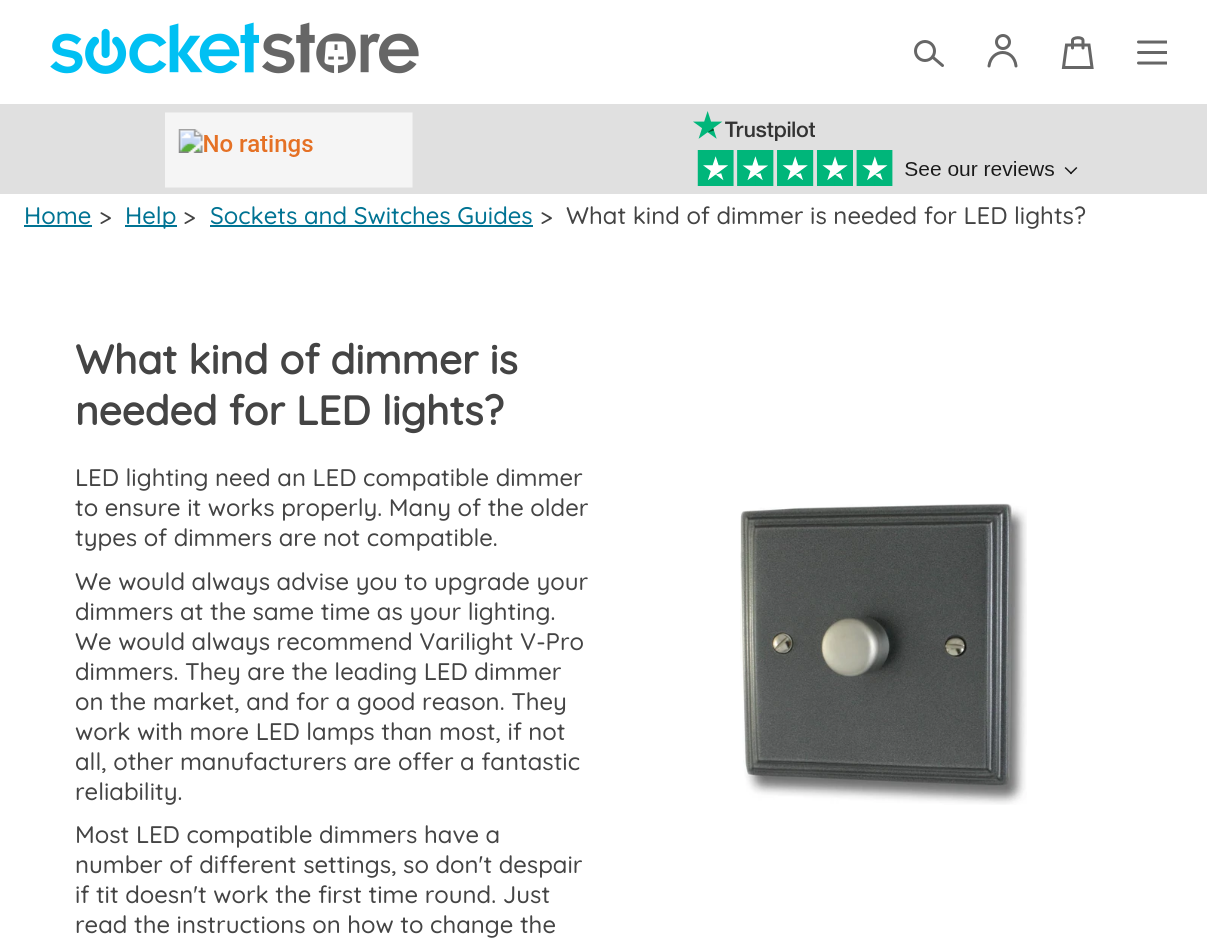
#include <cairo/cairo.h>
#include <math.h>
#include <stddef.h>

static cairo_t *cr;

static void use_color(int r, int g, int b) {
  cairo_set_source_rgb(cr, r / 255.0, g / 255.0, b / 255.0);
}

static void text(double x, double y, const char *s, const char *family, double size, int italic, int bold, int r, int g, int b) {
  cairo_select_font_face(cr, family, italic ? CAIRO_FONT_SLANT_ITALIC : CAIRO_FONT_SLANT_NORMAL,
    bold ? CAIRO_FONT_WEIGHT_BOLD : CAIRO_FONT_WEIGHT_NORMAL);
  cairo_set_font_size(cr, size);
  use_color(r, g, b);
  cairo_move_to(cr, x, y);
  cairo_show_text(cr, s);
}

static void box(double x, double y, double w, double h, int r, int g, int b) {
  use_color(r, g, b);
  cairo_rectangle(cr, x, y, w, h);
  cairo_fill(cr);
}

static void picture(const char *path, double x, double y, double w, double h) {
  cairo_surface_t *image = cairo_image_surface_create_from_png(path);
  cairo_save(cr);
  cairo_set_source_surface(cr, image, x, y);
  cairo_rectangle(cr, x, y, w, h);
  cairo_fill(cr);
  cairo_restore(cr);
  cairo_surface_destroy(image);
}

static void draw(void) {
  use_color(255, 255, 255);
  cairo_paint(cr);
  picture("img_01.png", 50, 22, 369, 52);
  cairo_arc(cr, 925, 51, 9.5, 0, 2 * M_PI);
  use_color(102, 102, 102);
  cairo_set_line_width(cr, 3);
  cairo_stroke(cr);
  cairo_new_path(cr);
  cairo_move_to(cr, 932.5, 57);
  cairo_line_to(cr, 942.5, 65.5);
  cairo_set_line_cap(cr, CAIRO_LINE_CAP_ROUND);
  cairo_stroke(cr);
  cairo_new_path(cr);
  cairo_move_to(cr, 989, 66);
  cairo_curve_to(cr, 991.5, 48, 1014, 48, 1016, 66);
  cairo_stroke(cr);
  cairo_arc(cr, 1003, 42, 6.5, 0, 2 * M_PI);
  cairo_set_line_cap(cr, CAIRO_LINE_CAP_BUTT);
  cairo_stroke(cr);
  cairo_new_path(cr);
  cairo_move_to(cr, 1063.5, 67.5);
  cairo_line_to(cr, 1092, 67.5);
  cairo_line_to(cr, 1089, 45);
  cairo_line_to(cr, 1066.5, 45);
  cairo_close_path(cr);
  cairo_move_to(cr, 1072.5, 48);
  cairo_line_to(cr, 1072.5, 40.5);
  cairo_curve_to(cr, 1072.5, 37, 1083, 36.5, 1083, 40.5);
  cairo_line_to(cr, 1083, 48);
  cairo_set_line_cap(cr, CAIRO_LINE_CAP_ROUND);
  cairo_stroke(cr);
  cairo_save(cr);
  cairo_rectangle(cr, 1136, 8, 31, 90);
  cairo_clip(cr);
  cairo_new_path(cr);
  cairo_move_to(cr, 1138.5, 42);
  cairo_line_to(cr, 1167, 42);
  cairo_move_to(cr, 1138.5, 52.5);
  cairo_line_to(cr, 1167, 52.5);
  cairo_move_to(cr, 1138.5, 63);
  cairo_line_to(cr, 1167, 63);
  cairo_stroke(cr);
  cairo_restore(cr);
  box(0, 104, 1207, 90, 224, 224, 224);
  picture("img_02.png", 165, 112, 248, 76);
  picture("img_03.png", 693, 111, 122, 30);
  picture("img_04.png", 697, 150, 381, 36);
  box(24, 225, 68, 2, 0, 115, 147);
  box(125, 225, 52, 2, 0, 115, 147);
  box(210, 225, 323, 2, 0, 115, 147);
  picture("img_05.png", 740, 503, 287, 302);
  text(24, 224, "Home", "Quicksand Light", 24, 0, 0, 0, 115, 147);
  text(99, 224, ">", "Quicksand Light", 24, 0, 0, 68, 68, 68);
  text(125, 224, "Help", "Quicksand Light", 24, 0, 0, 0, 115, 147);
  text(183, 224, ">", "Quicksand Light", 24, 0, 0, 68, 68, 68);
  text(210, 224, "Sockets and Switches Guides", "Quicksand Light", 24, 0, 0, 0, 115, 147);
  text(540, 224, ">", "Quicksand Light", 24, 0, 0, 68, 68, 68);
  text(566, 224, "What kind of dimmer is needed for LED lights?", "Quicksand Light", 24, 0, 0, 68, 68, 68);
  text(75, 374, "What kind of dimmer is", "Quicksand", 40.75, 0, 1, 68, 68, 68);
  text(75, 425, "needed for LED lights?", "Quicksand", 40.75, 0, 1, 68, 68, 68);
  text(75, 486, "LED lighting need an LED compatible dimmer", "Quicksand Light", 24, 0, 0, 68, 68, 68);
  text(75, 516, "to ensure it works properly. Many of the older", "Quicksand Light", 24, 0, 0, 68, 68, 68);
  text(75, 546, "types of dimmers are not compatible.", "Quicksand Light", 24, 0, 0, 68, 68, 68);
  text(75, 590, "We would always advise you to upgrade your", "Quicksand Light", 24, 0, 0, 68, 68, 68);
  text(75, 620, "dimmers at the same time as your lighting.", "Quicksand Light", 24, 0, 0, 68, 68, 68);
  text(75, 650, "We would always recommend Varilight V-Pro", "Quicksand Light", 24, 0, 0, 68, 68, 68);
  text(75, 680, "dimmers. They are the leading LED dimmer", "Quicksand Light", 24, 0, 0, 68, 68, 68);
  text(75, 710, "on the market, and for a good reason. They", "Quicksand Light", 24, 0, 0, 68, 68, 68);
  text(75, 740, "work with more LED lamps than most, if not", "Quicksand Light", 24, 0, 0, 68, 68, 68);
  text(75, 770, "all, other manufacturers are offer a fantastic", "Quicksand Light", 24, 0, 0, 68, 68, 68);
  text(75, 800, "reliability.", "Quicksand Light", 24, 0, 0, 68, 68, 68);
  text(75, 843, "Most LED compatible dimmers have a", "Quicksand Light", 24, 0, 0, 68, 68, 68);
  text(75, 873, "number of different settings, so don't despair", "Quicksand Light", 24, 0, 0, 68, 68, 68);
  text(75, 903, "if tit doesn't work the first time round. Just", "Quicksand Light", 24, 0, 0, 68, 68, 68);
  text(75, 933, "read the instructions on how to change the", "Quicksand Light", 24, 0, 0, 68, 68, 68);
}

int main(void) {
  cairo_surface_t *surface = cairo_image_surface_create(CAIRO_FORMAT_RGB24, 1207, 942);
  cr = cairo_create(surface);
  cairo_font_options_t *options = cairo_font_options_create();
  cairo_font_options_set_hint_metrics(options, CAIRO_HINT_METRICS_OFF);
  cairo_font_options_set_hint_style(options, CAIRO_HINT_STYLE_NONE);
  cairo_set_font_options(cr, options);
  cairo_set_miter_limit(cr, 4);
  draw();
  cairo_surface_write_to_png(surface, "out.png");
  cairo_font_options_destroy(options);
  cairo_destroy(cr);
  cairo_surface_destroy(surface);
  return 0;
}
